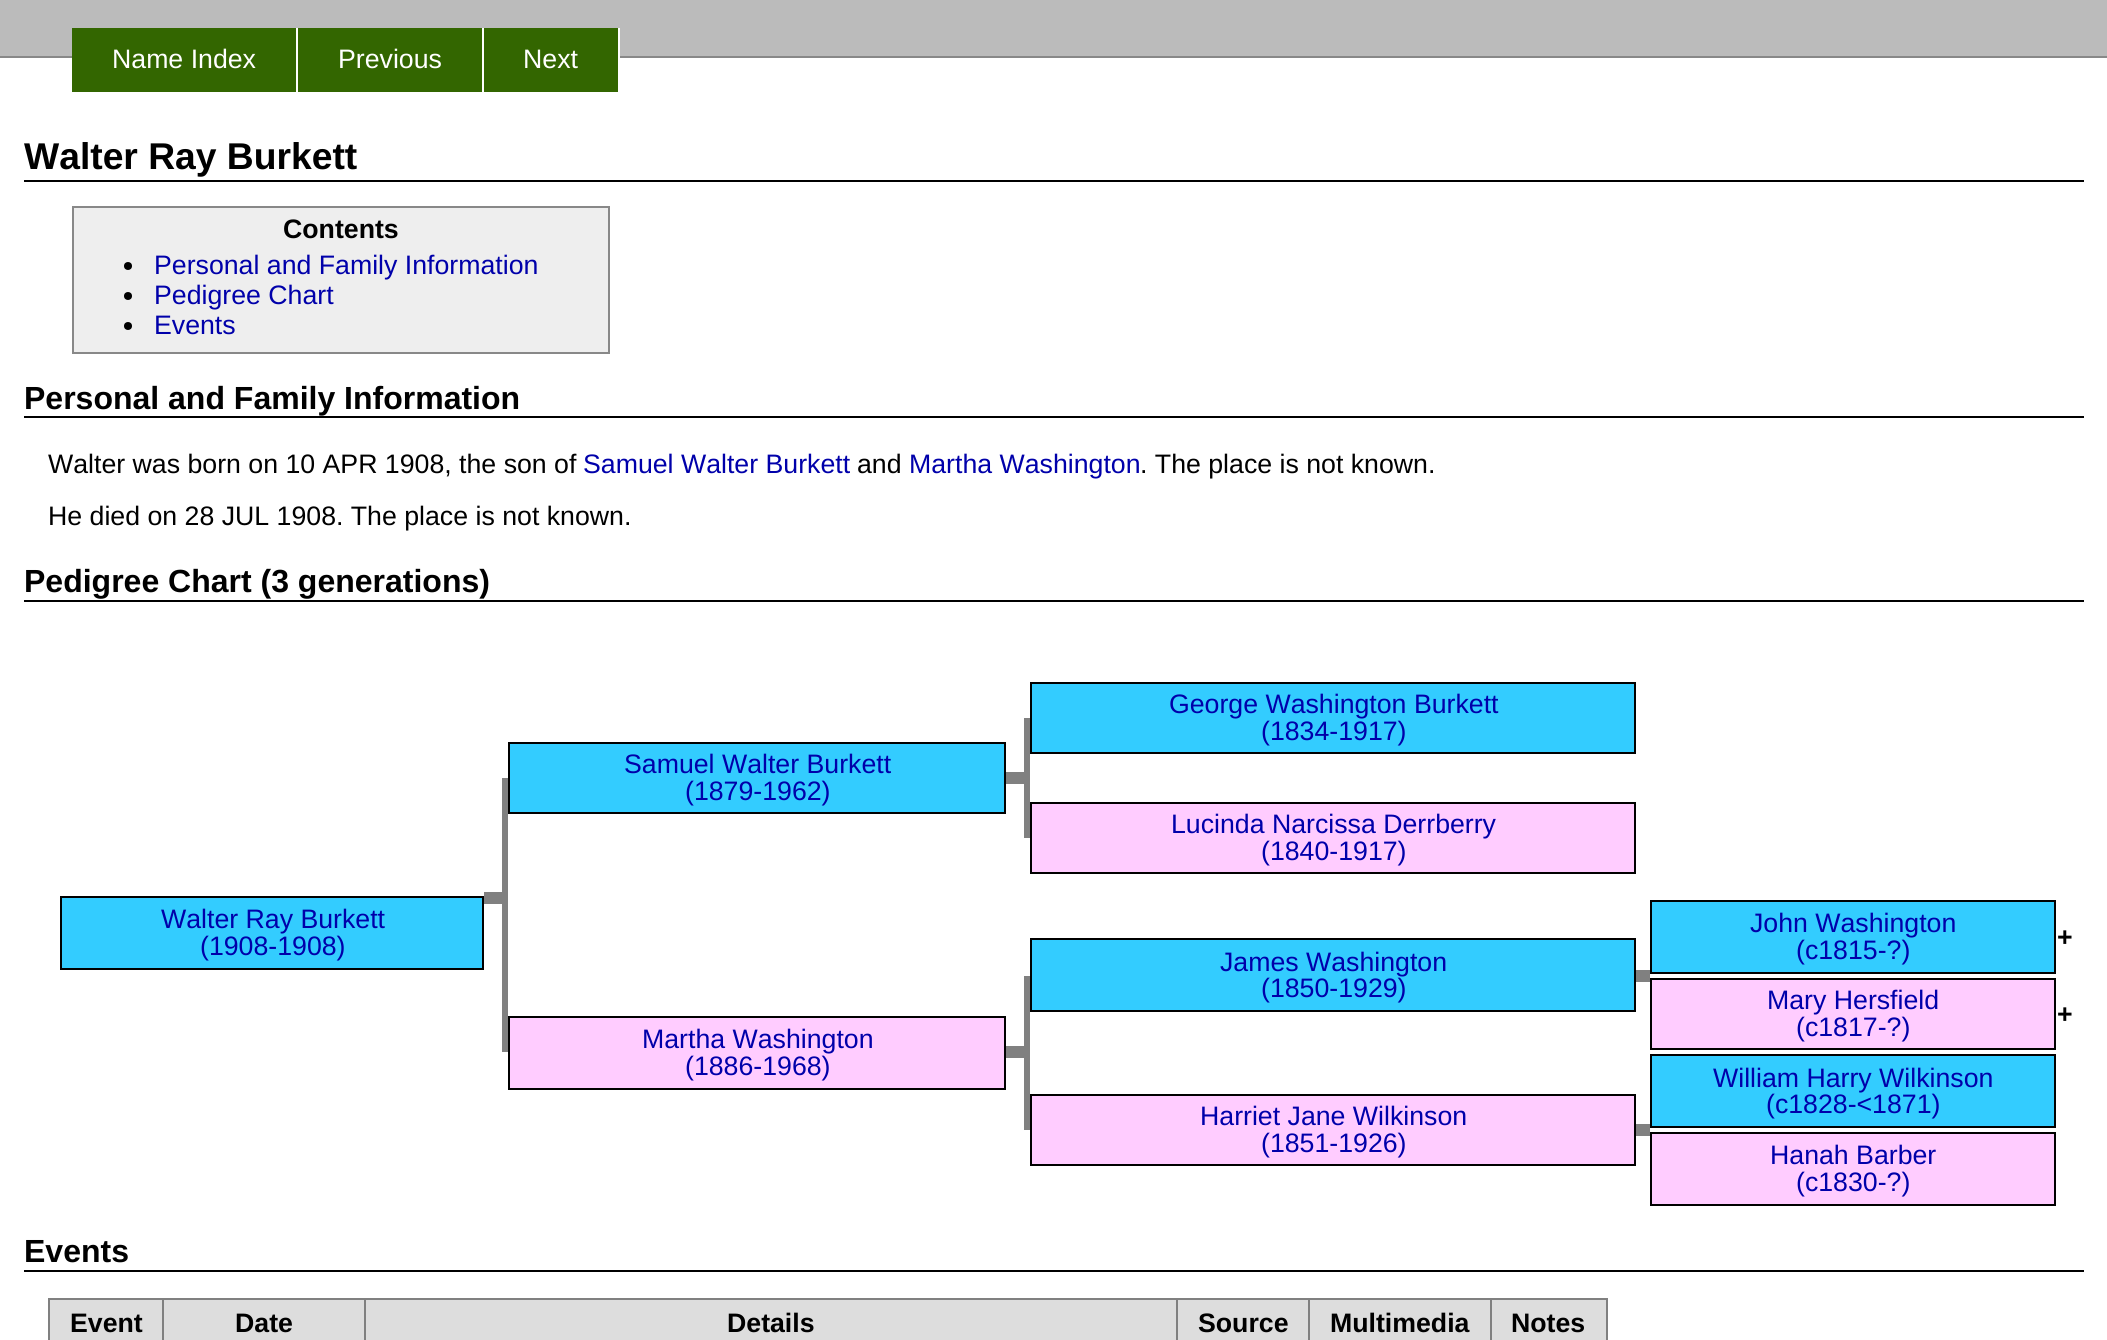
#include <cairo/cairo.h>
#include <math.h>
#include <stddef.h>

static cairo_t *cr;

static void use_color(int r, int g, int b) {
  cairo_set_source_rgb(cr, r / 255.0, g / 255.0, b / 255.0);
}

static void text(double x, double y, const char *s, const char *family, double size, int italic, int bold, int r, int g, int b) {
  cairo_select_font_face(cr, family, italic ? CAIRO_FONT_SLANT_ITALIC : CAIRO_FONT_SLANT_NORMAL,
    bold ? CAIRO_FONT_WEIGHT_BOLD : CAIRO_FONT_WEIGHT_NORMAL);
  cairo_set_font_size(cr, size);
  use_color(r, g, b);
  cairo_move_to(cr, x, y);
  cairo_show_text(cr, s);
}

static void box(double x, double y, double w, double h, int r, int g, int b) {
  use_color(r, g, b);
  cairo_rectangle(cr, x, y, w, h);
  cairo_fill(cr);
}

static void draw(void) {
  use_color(255, 255, 255);
  cairo_paint(cr);
  box(0, 0, 2107, 56, 187, 187, 187);
  box(0, 56, 2107, 2, 136, 136, 136);
  box(72, 28, 224, 64, 51, 102, 0);
  box(296, 28, 2, 30, 255, 255, 255);
  box(298, 28, 184, 64, 51, 102, 0);
  box(482, 28, 2, 30, 255, 255, 255);
  box(484, 28, 134, 64, 51, 102, 0);
  box(618, 28, 2, 30, 255, 255, 255);
  box(24, 180, 2060, 2, 0, 0, 0);
  use_color(238, 238, 238);
  cairo_rectangle(cr, 73, 207, 536, 146);
  cairo_fill_preserve(cr);
  use_color(136, 136, 136);
  cairo_stroke(cr);
  use_color(0, 0, 0);
  cairo_arc(cr, 128, 266, 4, 0, 2 * M_PI);
  cairo_fill(cr);
  cairo_arc(cr, 128, 296, 4, 0, 2 * M_PI);
  cairo_fill(cr);
  cairo_arc(cr, 128, 326, 4, 0, 2 * M_PI);
  cairo_fill(cr);
  box(24, 416, 2060, 2, 0, 0, 0);
  box(24, 600, 2060, 2, 0, 0, 0);
  use_color(51, 204, 255);
  cairo_rectangle(cr, 1031, 683, 604, 70);
  cairo_fill_preserve(cr);
  use_color(0, 0, 0);
  cairo_stroke(cr);
  use_color(51, 204, 255);
  cairo_rectangle(cr, 509, 743, 496, 70);
  cairo_fill_preserve(cr);
  use_color(0, 0, 0);
  cairo_stroke(cr);
  use_color(51, 204, 255);
  cairo_rectangle(cr, 61, 897, 422, 72);
  cairo_fill_preserve(cr);
  use_color(0, 0, 0);
  cairo_stroke(cr);
  box(1024, 718, 6, 60, 128, 128, 128);
  box(1006, 772, 24, 12, 128, 128, 128);
  box(502, 778, 6, 120, 128, 128, 128);
  box(484, 892, 24, 12, 128, 128, 128);
  box(1024, 778, 6, 60, 128, 128, 128);
  use_color(255, 204, 255);
  cairo_rectangle(cr, 1031, 803, 604, 70);
  cairo_fill_preserve(cr);
  use_color(0, 0, 0);
  cairo_stroke(cr);
  box(502, 898, 6, 154, 128, 128, 128);
  use_color(51, 204, 255);
  cairo_rectangle(cr, 1651, 901, 404, 72);
  cairo_fill_preserve(cr);
  use_color(0, 0, 0);
  cairo_stroke(cr);
  use_color(51, 204, 255);
  cairo_rectangle(cr, 1031, 939, 604, 72);
  cairo_fill_preserve(cr);
  use_color(0, 0, 0);
  cairo_stroke(cr);
  box(1636, 970, 14, 12, 128, 128, 128);
  use_color(255, 204, 255);
  cairo_rectangle(cr, 509, 1017, 496, 72);
  cairo_fill_preserve(cr);
  use_color(0, 0, 0);
  cairo_stroke(cr);
  box(1024, 976, 6, 76, 128, 128, 128);
  box(1006, 1046, 24, 12, 128, 128, 128);
  use_color(255, 204, 255);
  cairo_rectangle(cr, 1651, 979, 404, 70);
  cairo_fill_preserve(cr);
  use_color(0, 0, 0);
  cairo_stroke(cr);
  box(1024, 1052, 6, 78, 128, 128, 128);
  use_color(51, 204, 255);
  cairo_rectangle(cr, 1651, 1055, 404, 72);
  cairo_fill_preserve(cr);
  use_color(0, 0, 0);
  cairo_stroke(cr);
  use_color(255, 204, 255);
  cairo_rectangle(cr, 1031, 1095, 604, 70);
  cairo_fill_preserve(cr);
  use_color(0, 0, 0);
  cairo_stroke(cr);
  box(1636, 1124, 14, 12, 128, 128, 128);
  use_color(255, 204, 255);
  cairo_rectangle(cr, 1651, 1133, 404, 72);
  cairo_fill_preserve(cr);
  use_color(0, 0, 0);
  cairo_stroke(cr);
  box(24, 1270, 2060, 2, 0, 0, 0);
  box(50, 1300, 112, 40, 221, 221, 221);
  box(1490, 1298, 118, 2, 128, 128, 128);
  box(1490, 1298, 2, 42, 128, 128, 128);
  box(1308, 1298, 184, 2, 128, 128, 128);
  box(1308, 1298, 2, 42, 128, 128, 128);
  box(1176, 1298, 134, 2, 128, 128, 128);
  box(1176, 1298, 2, 42, 128, 128, 128);
  box(364, 1298, 814, 2, 128, 128, 128);
  box(364, 1298, 2, 42, 128, 128, 128);
  box(162, 1298, 204, 2, 128, 128, 128);
  box(162, 1298, 2, 42, 128, 128, 128);
  box(48, 1298, 116, 2, 128, 128, 128);
  box(48, 1298, 2, 42, 128, 128, 128);
  box(164, 1300, 200, 40, 221, 221, 221);
  box(366, 1300, 810, 40, 221, 221, 221);
  box(1178, 1300, 130, 40, 221, 221, 221);
  box(1310, 1300, 180, 40, 221, 221, 221);
  box(1492, 1300, 114, 40, 221, 221, 221);
  box(1606, 1298, 2, 42, 128, 128, 128);
  text(112, 68, "Name Index", "Liberation Sans", 26.7, 0, 0, 255, 255, 255);
  text(338, 68, "Previous", "Liberation Sans", 26.7, 0, 0, 255, 255, 255);
  text(523, 68, "Next", "Liberation Sans", 26.7, 0, 0, 255, 255, 255);
  text(24, 169, "Walter Ray Burkett", "Liberation Sans", 37.25, 0, 1, 0, 0, 0);
  text(283, 238, "Contents", "Liberation Sans", 26.7, 0, 1, 0, 0, 0);
  text(154, 274, "Personal and Family Information", "Liberation Sans", 26.7, 0, 0, 0, 0, 170);
  text(154, 304, "Pedigree Chart", "Liberation Sans", 26.7, 0, 0, 0, 0, 170);
  text(154, 334, "Events", "Liberation Sans", 26.7, 0, 0, 0, 0, 170);
  text(24, 409, "Personal and Family Information", "Liberation Sans", 32, 0, 1, 0, 0, 0);
  text(48, 473, "Walter was born on 10 APR 1908, the son of", "Liberation Sans", 26.7, 0, 0, 0, 0, 0);
  text(583, 473, "Samuel Walter Burkett", "Liberation Sans", 26.7, 0, 0, 0, 0, 170);
  text(857, 473, "and", "Liberation Sans", 26.7, 0, 0, 0, 0, 0);
  text(909, 473, "Martha Washington", "Liberation Sans", 26.7, 0, 0, 0, 0, 170);
  text(1140, 473, ". The place is not known.", "Liberation Sans", 26.7, 0, 0, 0, 0, 0);
  text(48, 525, "He died on 28 JUL 1908. The place is not known.", "Liberation Sans", 26.7, 0, 0, 0, 0, 0);
  text(24, 592, "Pedigree Chart (3 generations)", "Liberation Sans", 32, 0, 1, 0, 0, 0);
  text(1169, 713, "George Washington Burkett", "Liberation Sans", 26.7, 0, 0, 0, 0, 170);
  text(1261, 740, "(1834-1917)", "Liberation Sans", 26.7, 0, 0, 0, 0, 170);
  text(624, 773, "Samuel Walter Burkett", "Liberation Sans", 26.7, 0, 0, 0, 0, 170);
  text(685, 800, "(1879-1962)", "Liberation Sans", 26.7, 0, 0, 0, 0, 170);
  text(161, 928, "Walter Ray Burkett", "Liberation Sans", 26.7, 0, 0, 0, 0, 170);
  text(200, 955, "(1908-1908)", "Liberation Sans", 26.7, 0, 0, 0, 0, 170);
  text(1171, 833, "Lucinda Narcissa Derrberry", "Liberation Sans", 26.7, 0, 0, 0, 0, 170);
  text(1261, 860, "(1840-1917)", "Liberation Sans", 26.7, 0, 0, 0, 0, 170);
  text(1750, 932, "John Washington", "Liberation Sans", 26.7, 0, 0, 0, 0, 170);
  text(1796, 959, "(c1815-?)", "Liberation Sans", 26.7, 0, 0, 0, 0, 170);
  text(2057, 946, "+", "Liberation Sans", 26.7, 0, 1, 0, 0, 0);
  text(1220, 971, "James Washington", "Liberation Sans", 26.7, 0, 0, 0, 0, 170);
  text(1261, 997, "(1850-1929)", "Liberation Sans", 26.7, 0, 0, 0, 0, 170);
  text(642, 1048, "Martha Washington", "Liberation Sans", 26.7, 0, 0, 0, 0, 170);
  text(685, 1075, "(1886-1968)", "Liberation Sans", 26.7, 0, 0, 0, 0, 170);
  text(1767, 1009, "Mary Hersfield", "Liberation Sans", 26.7, 0, 0, 0, 0, 170);
  text(1796, 1036, "(c1817-?)", "Liberation Sans", 26.7, 0, 0, 0, 0, 170);
  text(2057, 1023, "+", "Liberation Sans", 26.7, 0, 1, 0, 0, 0);
  text(1713, 1087, "William Harry Wilkinson", "Liberation Sans", 26.7, 0, 0, 0, 0, 170);
  text(1766, 1113, "(c1828-<1871)", "Liberation Sans", 26.7, 0, 0, 0, 0, 170);
  text(1200, 1125, "Harriet Jane Wilkinson", "Liberation Sans", 26.7, 0, 0, 0, 0, 170);
  text(1261, 1152, "(1851-1926)", "Liberation Sans", 26.7, 0, 0, 0, 0, 170);
  text(1770, 1164, "Hanah Barber", "Liberation Sans", 26.7, 0, 0, 0, 0, 170);
  text(1796, 1191, "(c1830-?)", "Liberation Sans", 26.7, 0, 0, 0, 0, 170);
  text(24, 1262, "Events", "Liberation Sans", 32, 0, 1, 0, 0, 0);
  text(70, 1332, "Event", "Liberation Sans", 26.7, 0, 1, 0, 0, 0);
  text(235, 1332, "Date", "Liberation Sans", 26.7, 0, 1, 0, 0, 0);
  text(727, 1332, "Details", "Liberation Sans", 26.7, 0, 1, 0, 0, 0);
  text(1198, 1332, "Source", "Liberation Sans", 26.7, 0, 1, 0, 0, 0);
  text(1330, 1332, "Multimedia", "Liberation Sans", 26.7, 0, 1, 0, 0, 0);
  text(1511, 1332, "Notes", "Liberation Sans", 26.7, 0, 1, 0, 0, 0);
}

int main(void) {
  cairo_surface_t *surface = cairo_image_surface_create(CAIRO_FORMAT_RGB24, 2107, 1340);
  cr = cairo_create(surface);
  cairo_font_options_t *options = cairo_font_options_create();
  cairo_font_options_set_hint_metrics(options, CAIRO_HINT_METRICS_OFF);
  cairo_font_options_set_hint_style(options, CAIRO_HINT_STYLE_NONE);
  cairo_set_font_options(cr, options);
  cairo_set_miter_limit(cr, 4);
  draw();
  cairo_surface_write_to_png(surface, "out.png");
  cairo_font_options_destroy(options);
  cairo_destroy(cr);
  cairo_surface_destroy(surface);
  return 0;
}
